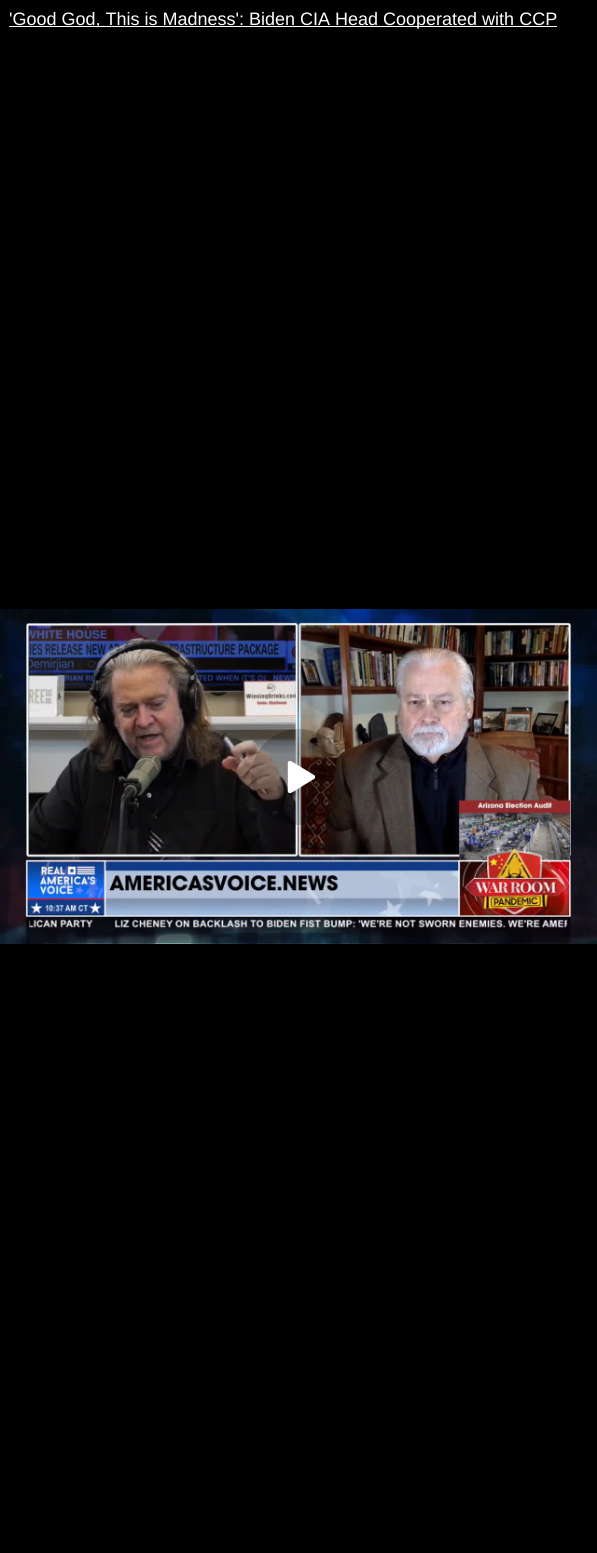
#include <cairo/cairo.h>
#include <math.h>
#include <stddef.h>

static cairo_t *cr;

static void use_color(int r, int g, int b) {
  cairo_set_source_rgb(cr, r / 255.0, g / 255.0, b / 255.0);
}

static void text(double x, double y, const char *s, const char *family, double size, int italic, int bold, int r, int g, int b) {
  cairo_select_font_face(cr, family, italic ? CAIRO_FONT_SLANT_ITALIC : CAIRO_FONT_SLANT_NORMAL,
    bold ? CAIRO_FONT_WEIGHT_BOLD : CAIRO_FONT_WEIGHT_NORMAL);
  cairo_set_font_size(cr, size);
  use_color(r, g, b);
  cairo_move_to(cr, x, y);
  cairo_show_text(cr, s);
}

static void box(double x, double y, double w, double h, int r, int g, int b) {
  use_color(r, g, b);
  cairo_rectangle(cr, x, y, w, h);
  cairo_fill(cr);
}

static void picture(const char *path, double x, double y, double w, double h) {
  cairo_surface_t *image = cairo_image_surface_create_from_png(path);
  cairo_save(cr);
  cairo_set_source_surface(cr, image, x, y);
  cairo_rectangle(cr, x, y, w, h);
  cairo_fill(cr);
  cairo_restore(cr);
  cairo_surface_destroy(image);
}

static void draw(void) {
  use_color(0, 0, 0);
  cairo_paint(cr);
  box(9, 26, 548, 1, 255, 255, 255);
  picture("img_01.png", 0, 609, 597, 335);
  cairo_set_source_rgba(cr, 0, 0, 0, 0.2);
  cairo_arc(cr, 299, 777, 48, 0, 2 * M_PI);
  cairo_fill(cr);
  use_color(255, 255, 255);
  cairo_new_path(cr);
  cairo_move_to(cr, 313, 777);
  cairo_line_to(cr, 290, 763);
  cairo_line_to(cr, 290, 791);
  cairo_close_path(cr);
  cairo_fill(cr);
  cairo_save(cr);
  cairo_rectangle(cr, 283, 761, 32, 32);
  cairo_clip(cr);
  cairo_new_path(cr);
  cairo_move_to(cr, 313, 777);
  cairo_line_to(cr, 290, 763);
  cairo_line_to(cr, 290, 791);
  cairo_close_path(cr);
  cairo_set_line_width(cr, 4.4);
  cairo_set_line_join(cr, CAIRO_LINE_JOIN_ROUND);
  cairo_stroke(cr);
  cairo_restore(cr);
  text(9, 25, "'Good God, This is Madness': Biden CIA Head Cooperated with CCP", "Liberation Sans", 18, 0, 0, 255, 255, 255);
}

int main(void) {
  cairo_surface_t *surface = cairo_image_surface_create(CAIRO_FORMAT_RGB24, 597, 1553);
  cr = cairo_create(surface);
  cairo_font_options_t *options = cairo_font_options_create();
  cairo_font_options_set_hint_metrics(options, CAIRO_HINT_METRICS_OFF);
  cairo_font_options_set_hint_style(options, CAIRO_HINT_STYLE_NONE);
  cairo_set_font_options(cr, options);
  cairo_set_miter_limit(cr, 4);
  draw();
  cairo_surface_write_to_png(surface, "out.png");
  cairo_font_options_destroy(options);
  cairo_destroy(cr);
  cairo_surface_destroy(surface);
  return 0;
}
